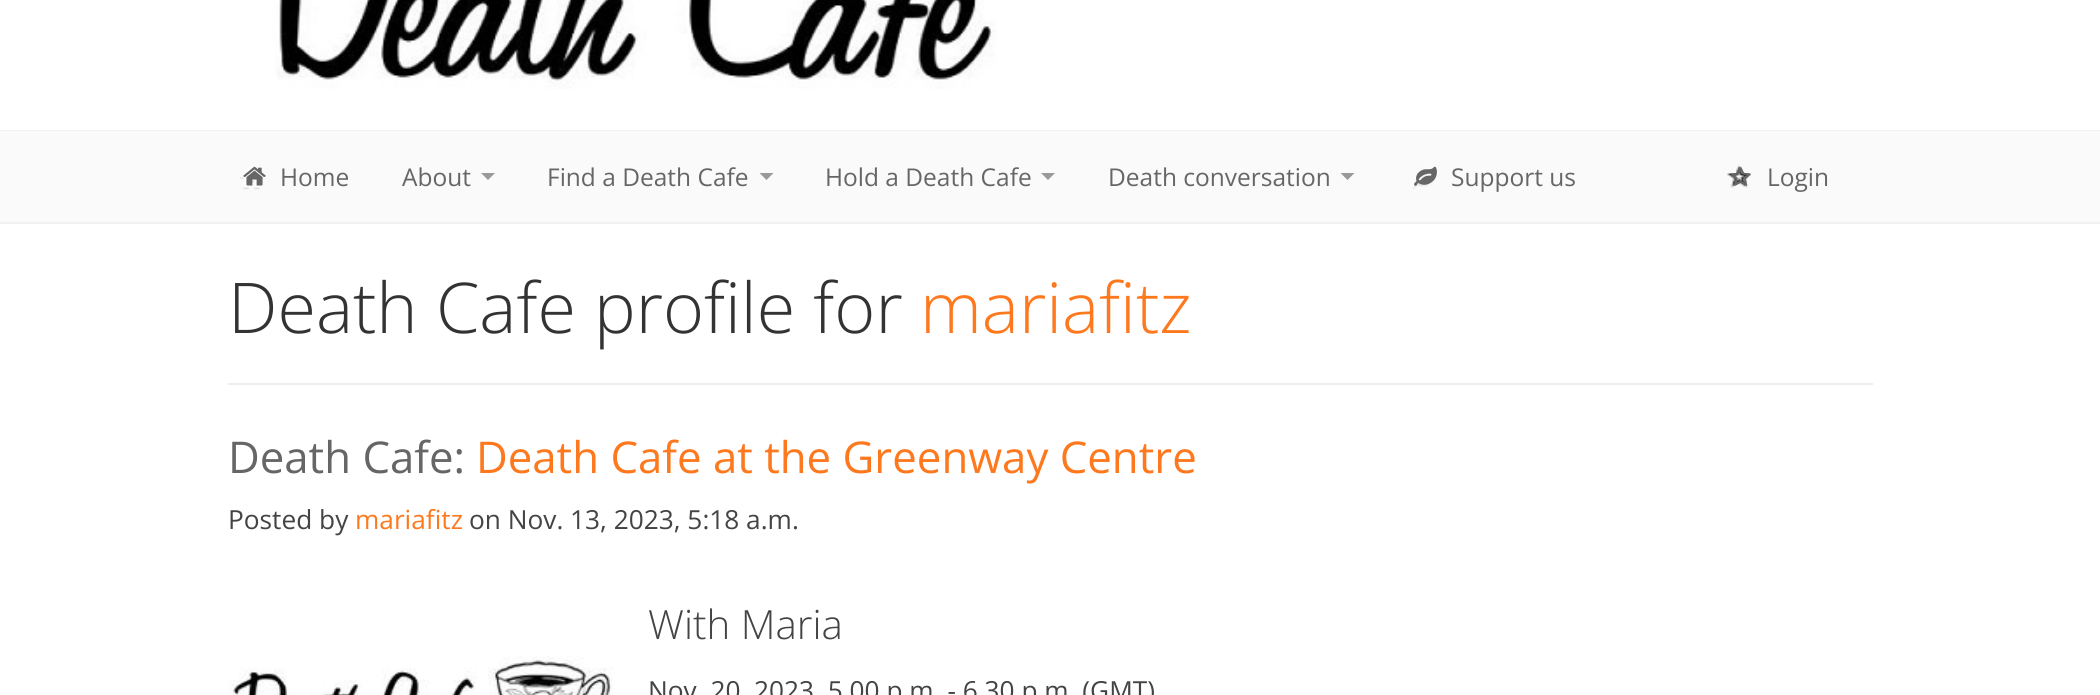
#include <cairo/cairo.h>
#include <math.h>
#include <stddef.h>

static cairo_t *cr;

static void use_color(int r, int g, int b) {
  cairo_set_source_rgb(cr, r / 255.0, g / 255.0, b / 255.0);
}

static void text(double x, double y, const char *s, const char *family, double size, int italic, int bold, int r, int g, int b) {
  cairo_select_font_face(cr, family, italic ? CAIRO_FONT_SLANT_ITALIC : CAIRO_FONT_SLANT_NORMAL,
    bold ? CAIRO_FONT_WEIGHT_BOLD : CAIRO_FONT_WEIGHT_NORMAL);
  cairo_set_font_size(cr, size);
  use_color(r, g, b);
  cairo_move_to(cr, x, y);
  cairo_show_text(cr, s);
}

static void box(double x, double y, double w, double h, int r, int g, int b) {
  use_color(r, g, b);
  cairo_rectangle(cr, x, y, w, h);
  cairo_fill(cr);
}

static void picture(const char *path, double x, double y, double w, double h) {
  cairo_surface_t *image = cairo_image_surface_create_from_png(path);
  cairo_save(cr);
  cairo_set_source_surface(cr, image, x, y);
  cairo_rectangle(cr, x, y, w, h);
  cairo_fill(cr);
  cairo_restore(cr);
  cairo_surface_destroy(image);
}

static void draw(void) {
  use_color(255, 255, 255);
  cairo_paint(cr);
  picture("img_01.png", 275, 0, 722, 89);
  box(0, 130, 2100, 1, 241, 241, 241);
  box(0, 222, 2100, 2, 241, 241, 241);
  box(0, 131, 2100, 91, 250, 250, 250);
  picture("img_02.png", 240, 167, 23, 23);
  picture("img_03.png", 243, 166, 23, 20);
  use_color(153, 153, 153);
  cairo_new_path(cr);
  cairo_move_to(cr, 481, 173);
  cairo_line_to(cr, 495, 173);
  cairo_line_to(cr, 488, 180);
  cairo_close_path(cr);
  cairo_fill(cr);
  cairo_new_path(cr);
  cairo_move_to(cr, 759.5, 173);
  cairo_line_to(cr, 773.5, 173);
  cairo_line_to(cr, 766.5, 180);
  cairo_close_path(cr);
  cairo_fill(cr);
  cairo_new_path(cr);
  cairo_move_to(cr, 1041, 173);
  cairo_line_to(cr, 1055, 173);
  cairo_line_to(cr, 1048, 180);
  cairo_close_path(cr);
  cairo_fill(cr);
  cairo_new_path(cr);
  cairo_move_to(cr, 1340.5, 173);
  cairo_line_to(cr, 1354.5, 173);
  cairo_line_to(cr, 1347.5, 180);
  cairo_close_path(cr);
  cairo_fill(cr);
  picture("img_04.png", 1412, 167, 22, 22);
  picture("img_05.png", 1414, 166, 23, 20);
  picture("img_06.png", 1727, 166, 24, 22);
  picture("img_07.png", 1730, 166, 21, 20);
  box(228, 383, 1645, 2, 238, 238, 238);
  picture("img_08.png", 228, 656, 385, 39);
  text(280, 186, "Home", "Open Sans", 24.5, 0, 0, 102, 102, 102);
  text(402, 186, "About", "Open Sans", 24.5, 0, 0, 102, 102, 102);
  text(547, 186, "Find a Death Cafe", "Open Sans", 24.5, 0, 0, 102, 102, 102);
  text(825, 186, "Hold a Death Cafe", "Open Sans", 24.5, 0, 0, 102, 102, 102);
  text(1108, 186, "Death conversation", "Open Sans", 24.5, 0, 0, 102, 102, 102);
  text(1451, 186, "Support us", "Open Sans", 24.5, 0, 0, 102, 102, 102);
  text(1767, 186, "Login", "Open Sans", 24.5, 0, 0, 102, 102, 102);
  text(228, 333, "Death Cafe profile for", "Open Sans Light", 70, 0, 0, 51, 51, 51);
  text(920, 333, "mariafitz", "Open Sans Light", 70, 0, 0, 254, 120, 30);
  text(228, 473, "Death Cafe:", "Open Sans", 43.75, 0, 0, 102, 102, 102);
  text(476, 473, "Death Cafe at the Greenway Centre", "Open Sans", 43.75, 0, 0, 254, 120, 30);
  text(228, 529, "Posted by", "Open Sans", 26.25, 0, 0, 68, 68, 68);
  text(355, 529, "mariafitz", "Open Sans", 26.25, 0, 0, 254, 120, 30);
  text(469, 529, "on Nov. 13, 2023, 5:18 a.m.", "Open Sans", 26.25, 0, 0, 68, 68, 68);
  text(648, 639, "With Maria", "Open Sans Light", 40.25, 0, 0, 68, 68, 68);
  text(648, 700, "Nov. 20, 2023, 5.00 p.m. - 6.30 p.m. (GMT)", "Open Sans", 26.25, 0, 0, 68, 68, 68);
}

int main(void) {
  cairo_surface_t *surface = cairo_image_surface_create(CAIRO_FORMAT_RGB24, 2100, 695);
  cr = cairo_create(surface);
  cairo_font_options_t *options = cairo_font_options_create();
  cairo_font_options_set_hint_metrics(options, CAIRO_HINT_METRICS_OFF);
  cairo_font_options_set_hint_style(options, CAIRO_HINT_STYLE_NONE);
  cairo_set_font_options(cr, options);
  cairo_set_miter_limit(cr, 4);
  draw();
  cairo_surface_write_to_png(surface, "out.png");
  cairo_font_options_destroy(options);
  cairo_destroy(cr);
  cairo_surface_destroy(surface);
  return 0;
}
